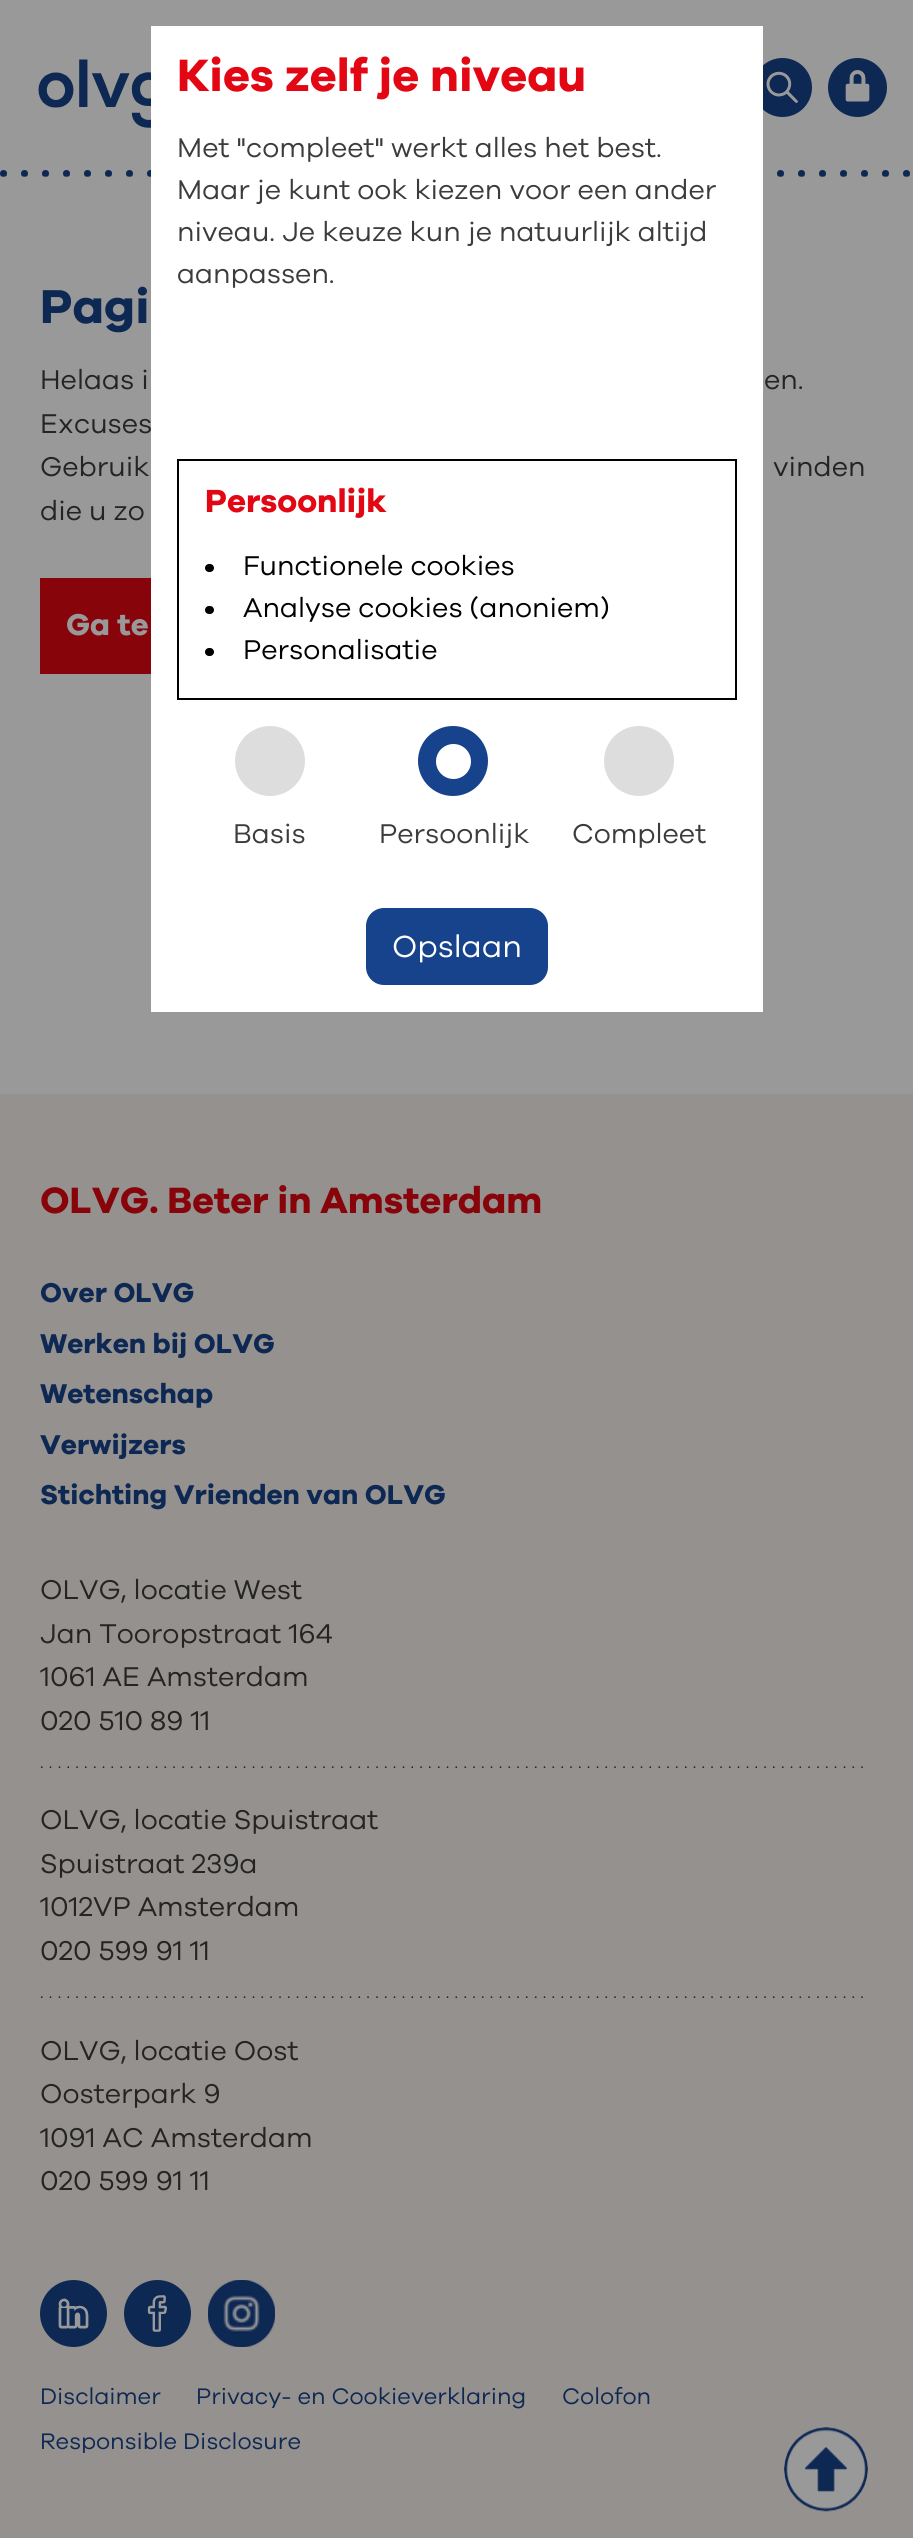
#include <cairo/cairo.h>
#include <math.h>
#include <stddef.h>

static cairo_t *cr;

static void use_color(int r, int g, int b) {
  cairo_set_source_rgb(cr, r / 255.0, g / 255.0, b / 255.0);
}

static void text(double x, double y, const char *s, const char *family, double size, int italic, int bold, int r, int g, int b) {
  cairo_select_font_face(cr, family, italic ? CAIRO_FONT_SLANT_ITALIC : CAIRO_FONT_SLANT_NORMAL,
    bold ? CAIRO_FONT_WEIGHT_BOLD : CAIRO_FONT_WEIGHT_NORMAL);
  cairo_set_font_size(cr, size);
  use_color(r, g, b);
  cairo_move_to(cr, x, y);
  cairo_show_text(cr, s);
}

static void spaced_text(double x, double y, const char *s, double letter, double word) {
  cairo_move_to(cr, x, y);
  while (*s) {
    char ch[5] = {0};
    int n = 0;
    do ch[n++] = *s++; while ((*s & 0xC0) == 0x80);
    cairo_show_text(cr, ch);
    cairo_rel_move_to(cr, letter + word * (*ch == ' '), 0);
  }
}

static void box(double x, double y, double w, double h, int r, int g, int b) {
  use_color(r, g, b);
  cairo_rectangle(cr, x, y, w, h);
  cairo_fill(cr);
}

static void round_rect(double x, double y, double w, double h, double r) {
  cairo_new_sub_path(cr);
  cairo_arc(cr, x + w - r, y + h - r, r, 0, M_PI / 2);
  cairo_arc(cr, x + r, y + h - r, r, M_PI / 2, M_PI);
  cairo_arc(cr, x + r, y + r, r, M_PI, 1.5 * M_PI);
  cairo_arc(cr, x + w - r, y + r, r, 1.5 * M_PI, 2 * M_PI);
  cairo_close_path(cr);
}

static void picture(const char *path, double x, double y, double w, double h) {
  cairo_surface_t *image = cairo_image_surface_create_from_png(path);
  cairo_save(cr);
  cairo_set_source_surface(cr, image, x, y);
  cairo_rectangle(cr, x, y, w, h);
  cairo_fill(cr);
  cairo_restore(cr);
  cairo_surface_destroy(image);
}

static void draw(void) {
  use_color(153, 153, 153);
  cairo_paint(cr);
  use_color(14, 40, 84);
  cairo_arc(cr, 782.5, 87.5, 29.5, 0, 2 * M_PI);
  cairo_fill(cr);
  picture("img_04.png", 0, 170, 910, 7);
  box(151, 26, 612, 986, 255, 255, 255);
  cairo_rectangle(cr, 178, 460, 558, 239);
  use_color(0, 0, 0);
  cairo_stroke(cr);
  round_rect(205, 564, 9, 8, 4);
  cairo_fill(cr);
  round_rect(205, 606, 9, 8, 4);
  cairo_fill(cr);
  round_rect(205, 648, 9, 8, 4);
  cairo_fill(cr);
  use_color(221, 221, 221);
  cairo_arc(cr, 270, 761, 35, 0, 2 * M_PI);
  cairo_fill(cr);
  use_color(23, 66, 140);
  cairo_arc(cr, 453, 761, 35, 0, 2 * M_PI);
  cairo_fill(cr);
  use_color(255, 255, 255);
  cairo_arc(cr, 453.5, 761.5, 17.5, 0, 2 * M_PI);
  cairo_fill(cr);
  use_color(221, 221, 221);
  cairo_arc(cr, 639, 761, 35, 0, 2 * M_PI);
  cairo_fill(cr);
  use_color(23, 66, 140);
  round_rect(366, 908, 182, 77, 18);
  cairo_fill(cr);
  picture("img_01.png", 38, 38, 113, 90);
  picture("img_02.png", 766, 71, 32, 32);
  use_color(14, 40, 84);
  cairo_arc(cr, 857.5, 87.5, 29.5, 0, 2 * M_PI);
  cairo_fill(cr);
  picture("img_03.png", 845, 70, 25, 32);
  box(40, 578, 111, 96, 136, 4, 11);
  box(0, 1094, 913, 1444, 148, 145, 142);
  use_color(14, 40, 84);
  cairo_arc(cr, 73.5, 2313.5, 33.5, 0, 2 * M_PI);
  cairo_fill(cr);
  picture("img_05.png", 58, 2298, 31, 31);
  cairo_arc(cr, 157.5, 2313.5, 33.5, 0, 2 * M_PI);
  cairo_fill(cr);
  picture("img_06.png", 147, 2295, 20, 37);
  cairo_arc(cr, 241.5, 2313.5, 33.5, 0, 2 * M_PI);
  cairo_fill(cr);
  picture("img_07.png", 208, 2280, 67, 67);
  use_color(153, 153, 153);
  cairo_arc(cr, 826, 2469, 42, 0, 2 * M_PI);
  cairo_fill(cr);
  picture("img_08.png", 784, 2427, 84, 85);
  text(177, 91, "Kies zelf je niveau", "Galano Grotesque", 46.75, 0, 1, 227, 6, 19);
  text(177, 157, "Met \"compleet\" werkt alles het best.", "Galano Grotesque", 28, 0, 0, 60, 60, 60);
  text(177, 199, "Maar je kunt ook kiezen voor een ander", "Galano Grotesque", 28, 0, 0, 60, 60, 60);
  text(177, 241, "niveau. Je keuze kun je natuurlijk altijd", "Galano Grotesque", 28, 0, 0, 60, 60, 60);
  text(177, 283, "aanpassen.", "Galano Grotesque", 28, 0, 0, 60, 60, 60);
  text(205, 512, "Persoonlijk", "Galano Grotesque", 33, 0, 1, 227, 6, 19);
  text(243, 575, "Functionele cookies", "Galano Grotesque", 28, 0, 0, 0, 0, 0);
  text(243, 617, "Analyse cookies (anoniem)", "Galano Grotesque", 28, 0, 0, 0, 0, 0);
  text(243, 659, "Personalisatie", "Galano Grotesque", 28, 0, 0, 0, 0, 0);
  text(233, 843, "Basis", "Galano Grotesque", 28, 0, 0, 60, 60, 60);
  text(379, 843, "Persoonlijk", "Galano Grotesque", 28, 0, 0, 60, 60, 60);
  text(572, 843, "Compleet", "Galano Grotesque", 28, 0, 0, 60, 60, 60);
  text(392, 957, "Opslaan", "Galano Grotesque", 31.5, 0, 0, 255, 255, 255);
  text(40, 323, "Pagi", "Galano Grotesque", 49, 0, 1, 14, 40, 84);
  text(40, 389, "Helaas i", "Galano Grotesque", 28, 0, 0, 36, 36, 36);
  text(764, 389, "en.", "Galano Grotesque", 28, 0, 0, 36, 36, 36);
  text(40, 433, "Excuses", "Galano Grotesque", 28, 0, 0, 36, 36, 36);
  text(40, 476, "Gebruik", "Galano Grotesque", 28, 0, 0, 36, 36, 36);
  text(773, 476, "vinden", "Galano Grotesque", 28, 0, 0, 36, 36, 36);
  text(40, 520, "die u zo", "Galano Grotesque", 28, 0, 0, 36, 36, 36);
  text(66, 635, "Ga te", "Galano Grotesque", 31, 0, 1, 153, 153, 153);
  text(40, 1213, "OLVG. Beter in Amsterdam", "Galano Grotesque", 37.75, 0, 1, 136, 4, 11);
  text(40, 1302, "Over OLVG", "Galano Grotesque", 28, 0, 1, 14, 40, 84);
  text(40, 1353, "Werken bij OLVG", "Galano Grotesque", 28, 0, 1, 14, 40, 84);
  text(40, 1403, "Wetenschap", "Galano Grotesque", 28, 0, 1, 14, 40, 84);
  text(40, 1454, "Verwijzers", "Galano Grotesque", 28, 0, 1, 14, 40, 84);
  text(40, 1504, "Stichting Vrienden van OLVG", "Galano Grotesque", 28, 0, 1, 14, 40, 84);
  text(40, 1599, "OLVG, locatie West", "Galano Grotesque", 28, 0, 0, 36, 36, 36);
  text(40, 1643, "Jan Tooropstraat 164", "Galano Grotesque", 28, 0, 0, 36, 36, 36);
  text(40, 1686, "1061 AE Amsterdam", "Galano Grotesque", 28, 0, 0, 36, 36, 36);
  text(40, 1730, "020 510 89 11", "Galano Grotesque", 28, 0, 0, 36, 36, 36);
  cairo_set_font_size(cr, 17.5);
  spaced_text(40, 1768, "..............................................................................................", 5.25, 0);
  text(40, 1829, "OLVG, locatie Spuistraat", "Galano Grotesque", 28, 0, 0, 36, 36, 36);
  text(40, 1873, "Spuistraat 239a", "Galano Grotesque", 28, 0, 0, 36, 36, 36);
  text(40, 1916, "1012VP Amsterdam", "Galano Grotesque", 28, 0, 0, 36, 36, 36);
  text(40, 1960, "020 599 91 11", "Galano Grotesque", 28, 0, 0, 36, 36, 36);
  cairo_set_font_size(cr, 17.5);
  spaced_text(40, 1998, "..............................................................................................", 5.25, 0);
  text(40, 2060, "OLVG, locatie Oost", "Galano Grotesque", 28, 0, 0, 36, 36, 36);
  text(40, 2103, "Oosterpark 9", "Galano Grotesque", 28, 0, 0, 36, 36, 36);
  text(40, 2147, "1091 AC Amsterdam", "Galano Grotesque", 28, 0, 0, 36, 36, 36);
  text(40, 2190, "020 599 91 11", "Galano Grotesque", 28, 0, 0, 36, 36, 36);
  text(40, 2404, "Disclaimer", "Galano Grotesque", 23.25, 0, 0, 14, 40, 84);
  text(196, 2404, "Privacy- en Cookieverklaring", "Galano Grotesque", 23.25, 0, 0, 14, 40, 84);
  text(562, 2404, "Colofon", "Galano Grotesque", 23.25, 0, 0, 14, 40, 84);
  text(40, 2449, "Responsible Disclosure", "Galano Grotesque", 23.25, 0, 0, 14, 40, 84);
}

int main(void) {
  cairo_surface_t *surface = cairo_image_surface_create(CAIRO_FORMAT_RGB24, 913, 2538);
  cr = cairo_create(surface);
  cairo_font_options_t *options = cairo_font_options_create();
  cairo_font_options_set_hint_metrics(options, CAIRO_HINT_METRICS_OFF);
  cairo_font_options_set_hint_style(options, CAIRO_HINT_STYLE_NONE);
  cairo_set_font_options(cr, options);
  cairo_set_miter_limit(cr, 4);
  draw();
  cairo_surface_write_to_png(surface, "out.png");
  cairo_font_options_destroy(options);
  cairo_destroy(cr);
  cairo_surface_destroy(surface);
  return 0;
}
